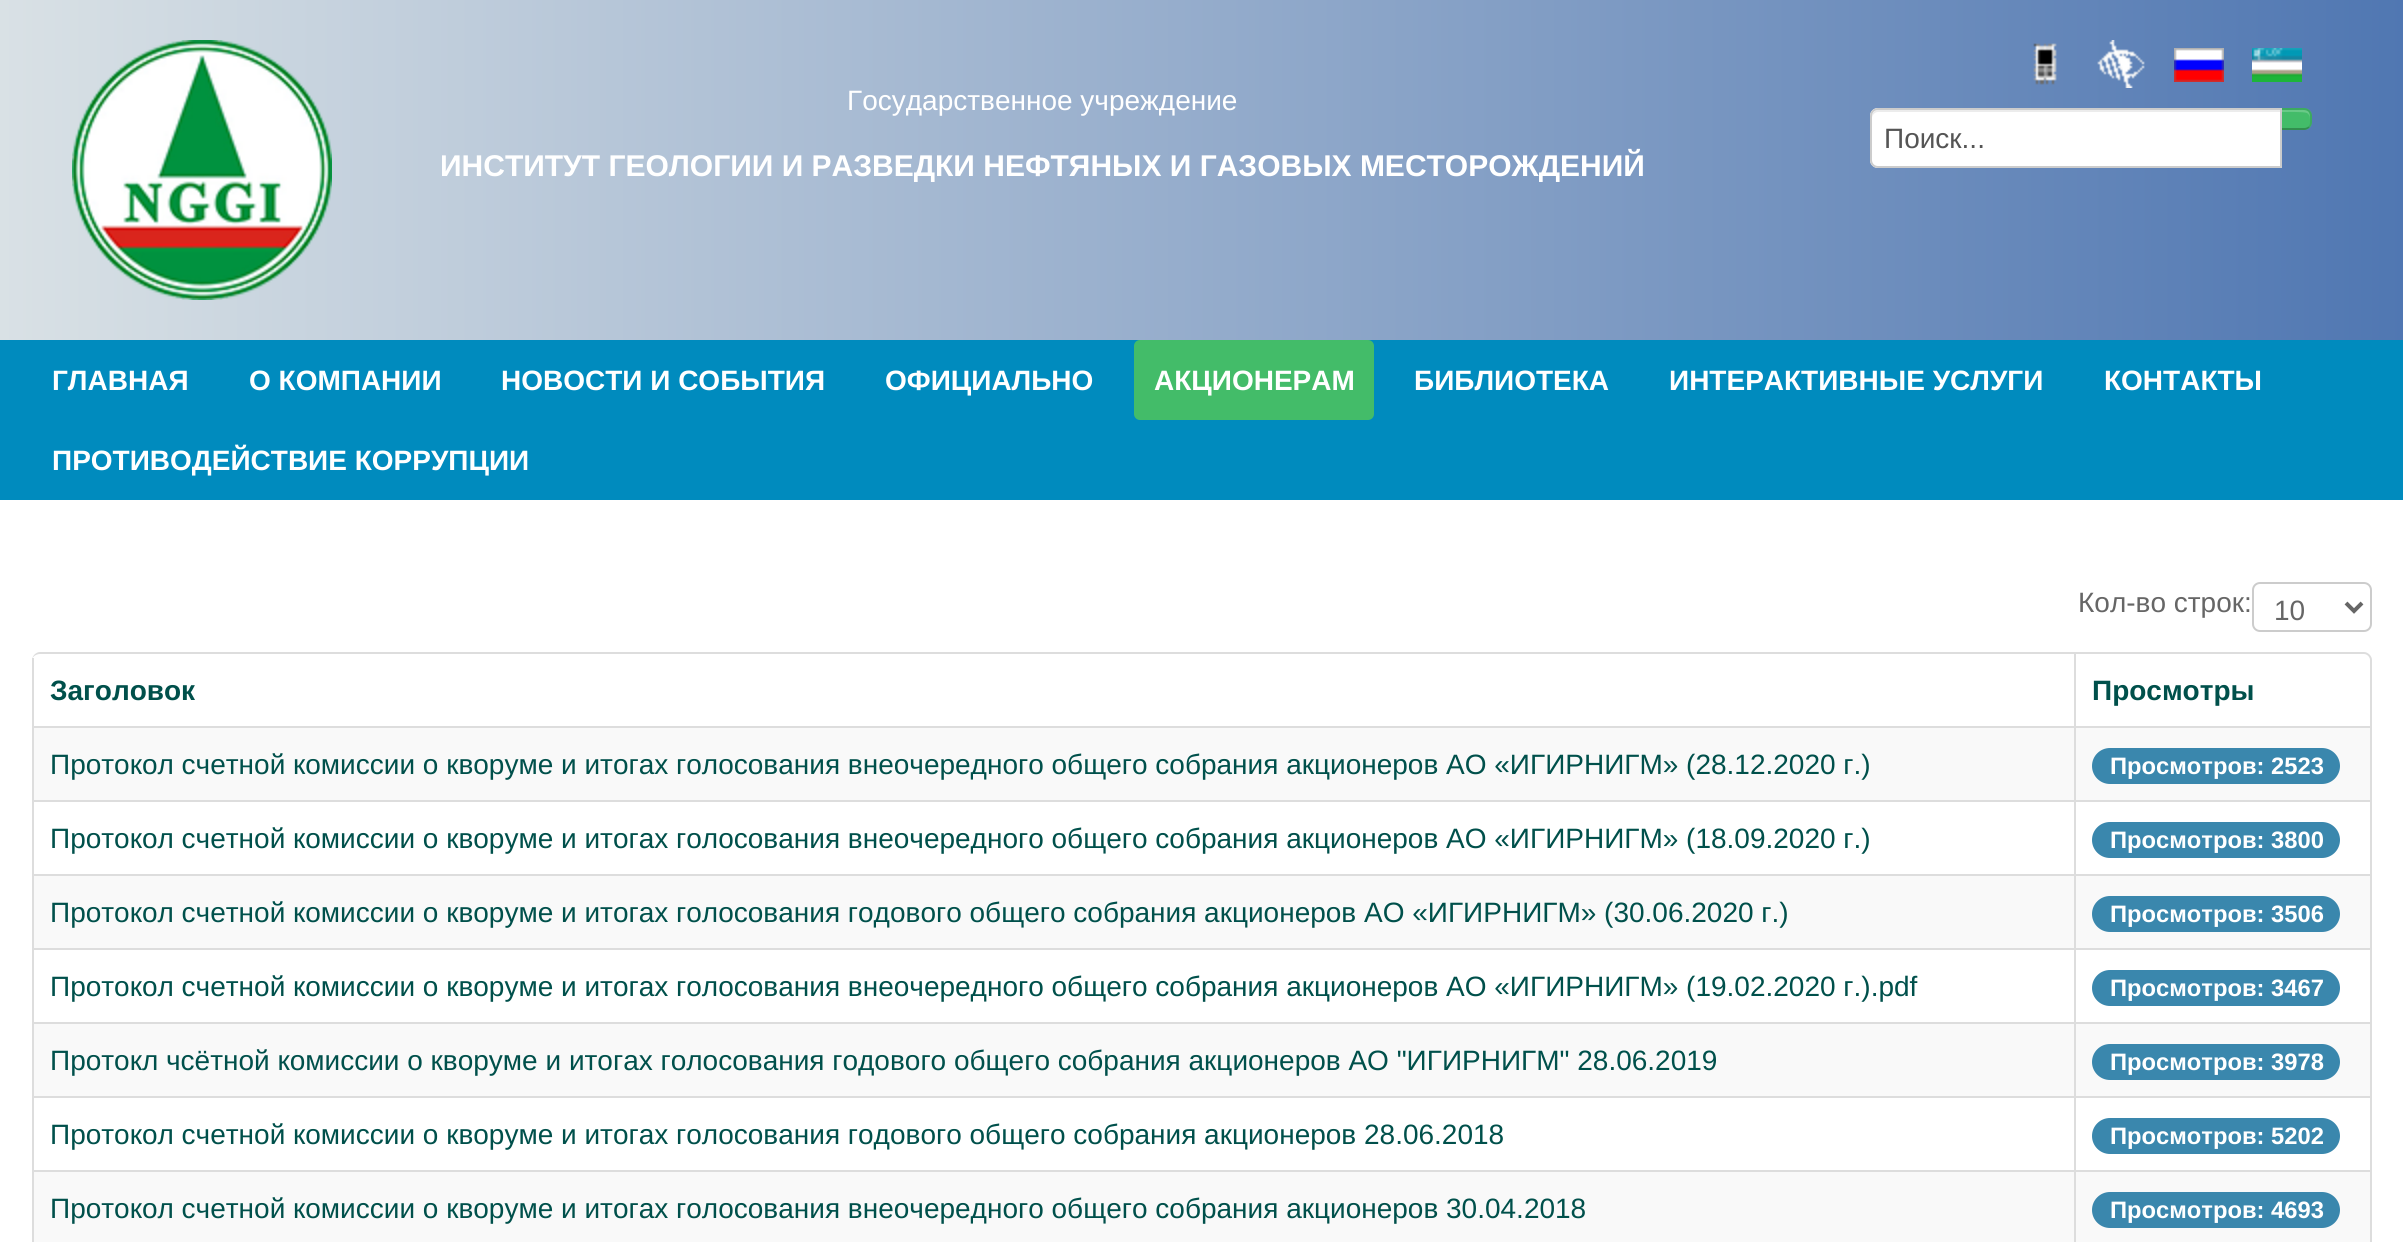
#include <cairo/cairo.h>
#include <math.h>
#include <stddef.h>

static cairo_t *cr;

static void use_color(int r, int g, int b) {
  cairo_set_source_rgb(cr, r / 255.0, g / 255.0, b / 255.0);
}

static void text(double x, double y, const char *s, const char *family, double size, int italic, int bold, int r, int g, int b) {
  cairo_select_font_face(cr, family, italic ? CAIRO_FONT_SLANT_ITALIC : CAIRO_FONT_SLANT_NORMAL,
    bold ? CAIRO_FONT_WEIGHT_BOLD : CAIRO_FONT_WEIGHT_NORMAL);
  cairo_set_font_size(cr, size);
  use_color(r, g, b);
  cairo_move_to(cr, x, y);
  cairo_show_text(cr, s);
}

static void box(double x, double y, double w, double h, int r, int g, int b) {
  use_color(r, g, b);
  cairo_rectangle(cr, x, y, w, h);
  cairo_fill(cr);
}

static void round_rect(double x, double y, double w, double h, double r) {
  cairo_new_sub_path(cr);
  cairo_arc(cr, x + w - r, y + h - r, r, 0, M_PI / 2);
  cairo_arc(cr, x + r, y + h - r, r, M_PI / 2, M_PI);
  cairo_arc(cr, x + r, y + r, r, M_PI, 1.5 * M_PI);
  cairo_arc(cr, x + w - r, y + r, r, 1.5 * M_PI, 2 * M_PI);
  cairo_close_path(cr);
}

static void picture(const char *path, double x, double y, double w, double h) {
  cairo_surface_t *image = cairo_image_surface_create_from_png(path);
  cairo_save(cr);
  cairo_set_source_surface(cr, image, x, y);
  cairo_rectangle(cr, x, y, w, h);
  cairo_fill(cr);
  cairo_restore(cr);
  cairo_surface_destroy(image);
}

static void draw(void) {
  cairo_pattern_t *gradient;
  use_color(255, 255, 255);
  cairo_paint(cr);
  gradient = cairo_pattern_create_linear(0, 170, 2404, 170);
  cairo_pattern_add_color_stop_rgba(gradient, 0, 0.851, 0.882, 0.898, 1);
  cairo_pattern_add_color_stop_rgba(gradient, 1, 0.314, 0.467, 0.698, 1);
  cairo_set_source(cr, gradient);
  cairo_pattern_destroy(gradient);
  cairo_rectangle(cr, 0, 0, 2403, 340);
  cairo_fill(cr);
  picture("img_01.png", 72, 40, 260, 260);
  picture("img_02.png", 2033, 43, 24, 42);
  picture("img_03.png", 2097, 40, 48, 48);
  picture("img_04.png", 2174, 48, 50, 34);
  picture("img_05.png", 2252, 48, 50, 34);
  use_color(67, 188, 105);
  cairo_new_path(cr);
  cairo_move_to(cr, 2280, 108);
  cairo_line_to(cr, 2304, 108);
  cairo_curve_to(cr, 2308.5, 108, 2312, 111.5, 2312, 116);
  cairo_line_to(cr, 2312, 122);
  cairo_curve_to(cr, 2312, 126.5, 2308.5, 130, 2304, 130);
  cairo_line_to(cr, 2280, 130);
  cairo_close_path(cr);
  cairo_fill(cr);
  use_color(105, 201, 135);
  cairo_new_path(cr);
  cairo_move_to(cr, 2282, 112);
  cairo_curve_to(cr, 2284.5, 112, 2304, 111.5, 2307, 113);
  cairo_curve_to(cr, 2310.5, 115, 2310, 119.5, 2310, 123);
  cairo_line_to(cr, 2310, 118);
  cairo_curve_to(cr, 2310, 108.5, 2304.5, 110, 2296.5, 110);
  cairo_line_to(cr, 2282, 110);
  cairo_close_path(cr);
  cairo_fill(cr);
  cairo_set_source_rgba(cr, 0, 0, 0, 0.1);
  cairo_new_path(cr);
  cairo_move_to(cr, 2280, 108);
  cairo_line_to(cr, 2282, 110);
  cairo_line_to(cr, 2304, 110);
  cairo_curve_to(cr, 2306, 110, 2307, 110.5, 2308.5, 111.5);
  cairo_line_to(cr, 2309.5, 110.5);
  cairo_curve_to(cr, 2308, 109, 2306, 108, 2304, 108);
  cairo_close_path(cr);
  cairo_fill(cr);
  cairo_new_path(cr);
  cairo_move_to(cr, 2312, 122);
  cairo_curve_to(cr, 2312, 118, 2313, 113.5, 2309.5, 110.5);
  cairo_line_to(cr, 2308.5, 111.5);
  cairo_curve_to(cr, 2310.5, 113.5, 2310, 116.5, 2310, 119);
  cairo_curve_to(cr, 2310, 121.5, 2310.5, 124.5, 2308.5, 126.5);
  cairo_line_to(cr, 2309.5, 127.5);
  cairo_curve_to(cr, 2311, 126, 2312, 124, 2312, 122);
  cairo_close_path(cr);
  cairo_fill(cr);
  cairo_set_source_rgba(cr, 0, 0, 0, 0.25);
  cairo_new_path(cr);
  cairo_move_to(cr, 2304, 130);
  cairo_curve_to(cr, 2306, 130, 2308, 129, 2309.5, 127.5);
  cairo_line_to(cr, 2308.5, 126.5);
  cairo_curve_to(cr, 2307, 127.5, 2306, 128, 2304, 128);
  cairo_line_to(cr, 2282, 128);
  cairo_line_to(cr, 2280, 130);
  cairo_close_path(cr);
  cairo_fill(cr);
  use_color(255, 255, 255);
  cairo_new_path(cr);
  cairo_move_to(cr, 1878, 108);
  cairo_line_to(cr, 2282, 108);
  cairo_line_to(cr, 2282, 168);
  cairo_line_to(cr, 1878, 168);
  cairo_curve_to(cr, 1873.5, 168, 1870, 164.5, 1870, 160);
  cairo_line_to(cr, 1870, 116);
  cairo_curve_to(cr, 1870, 111.5, 1873.5, 108, 1878, 108);
  cairo_close_path(cr);
  cairo_fill(cr);
  use_color(236, 236, 236);
  cairo_new_path(cr);
  cairo_move_to(cr, 1878, 112);
  cairo_line_to(cr, 2280, 112);
  cairo_line_to(cr, 2280, 110);
  cairo_line_to(cr, 1878, 110);
  cairo_curve_to(cr, 1875, 110, 1872, 113, 1872, 116);
  cairo_line_to(cr, 1872, 118);
  cairo_curve_to(cr, 1872, 115, 1875, 112, 1878, 112);
  cairo_close_path(cr);
  cairo_fill(cr);
  cairo_new_path(cr);
  cairo_move_to(cr, 1878, 109);
  cairo_line_to(cr, 2281, 109);
  cairo_line_to(cr, 2281, 167);
  cairo_line_to(cr, 1878, 167);
  cairo_curve_to(cr, 1874, 167, 1871, 164, 1871, 160);
  cairo_line_to(cr, 1871, 116);
  cairo_curve_to(cr, 1871, 112, 1874, 109, 1878, 109);
  cairo_close_path(cr);
  use_color(204, 204, 204);
  cairo_stroke(cr);
  box(0, 340, 2403, 160, 0, 139, 190);
  use_color(67, 188, 105);
  round_rect(1134, 340, 240, 80, 6);
  cairo_fill(cr);
  round_rect(2253, 583, 118, 48, 7);
  use_color(204, 204, 204);
  cairo_stroke(cr);
  cairo_new_path(cr);
  cairo_move_to(cr, 2346, 603);
  cairo_line_to(cr, 2354, 611);
  cairo_line_to(cr, 2362, 603);
  use_color(102, 102, 102);
  cairo_set_line_width(cr, 4);
  cairo_stroke(cr);
  use_color(221, 221, 221);
  cairo_set_fill_rule(cr, CAIRO_FILL_RULE_EVEN_ODD);
  cairo_new_path(cr);
  cairo_move_to(cr, 40, 652);
  cairo_line_to(cr, 2364, 652);
  cairo_curve_to(cr, 2368, 652, 2372, 656, 2372, 660);
  cairo_line_to(cr, 2372, 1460);
  cairo_curve_to(cr, 2372, 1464, 2368, 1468, 2364, 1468);
  cairo_line_to(cr, 40, 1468);
  cairo_curve_to(cr, 36, 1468, 32, 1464, 32, 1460);
  cairo_line_to(cr, 32, 660);
  cairo_curve_to(cr, 32, 656, 36, 652, 40, 652);
  cairo_close_path(cr);
  cairo_move_to(cr, 40, 654);
  cairo_line_to(cr, 2364, 654);
  cairo_curve_to(cr, 2367, 654, 2370, 657, 2370, 660);
  cairo_line_to(cr, 2370, 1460);
  cairo_curve_to(cr, 2370, 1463, 2367, 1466, 2364, 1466);
  cairo_line_to(cr, 40, 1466);
  cairo_curve_to(cr, 36, 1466, 32, 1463, 32, 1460);
  cairo_line_to(cr, 32, 660);
  cairo_curve_to(cr, 32, 657, 36, 654, 40, 654);
  cairo_close_path(cr);
  cairo_fill(cr);
  box(32, 658, 2, 68, 221, 221, 221);
  box(2074, 654, 2, 72, 221, 221, 221);
  box(34, 728, 2040, 72, 249, 249, 249);
  box(32, 726, 2338, 2, 221, 221, 221);
  box(32, 726, 2, 74, 221, 221, 221);
  box(2076, 728, 294, 72, 249, 249, 249);
  box(2074, 726, 2, 74, 221, 221, 221);
  use_color(58, 135, 173);
  round_rect(2092, 748, 248, 36, 18);
  cairo_fill(cr);
  box(32, 800, 2338, 2, 221, 221, 221);
  box(32, 800, 2, 74, 221, 221, 221);
  box(2074, 800, 2, 74, 221, 221, 221);
  use_color(58, 135, 173);
  round_rect(2092, 822, 248, 36, 18);
  cairo_fill(cr);
  box(34, 876, 2040, 72, 249, 249, 249);
  box(32, 874, 2338, 2, 221, 221, 221);
  box(32, 874, 2, 74, 221, 221, 221);
  box(2076, 876, 294, 72, 249, 249, 249);
  box(2074, 874, 2, 74, 221, 221, 221);
  use_color(58, 135, 173);
  round_rect(2092, 896, 248, 36, 18);
  cairo_fill(cr);
  box(32, 948, 2338, 2, 221, 221, 221);
  box(32, 948, 2, 74, 221, 221, 221);
  box(2074, 948, 2, 74, 221, 221, 221);
  use_color(58, 135, 173);
  round_rect(2092, 970, 248, 36, 18);
  cairo_fill(cr);
  box(34, 1024, 2040, 72, 249, 249, 249);
  box(32, 1022, 2338, 2, 221, 221, 221);
  box(32, 1022, 2, 74, 221, 221, 221);
  box(2076, 1024, 294, 72, 249, 249, 249);
  box(2074, 1022, 2, 74, 221, 221, 221);
  use_color(58, 135, 173);
  round_rect(2092, 1044, 248, 36, 18);
  cairo_fill(cr);
  box(32, 1096, 2338, 2, 221, 221, 221);
  box(32, 1096, 2, 74, 221, 221, 221);
  box(2074, 1096, 2, 74, 221, 221, 221);
  use_color(58, 135, 173);
  round_rect(2092, 1118, 248, 36, 18);
  cairo_fill(cr);
  box(34, 1172, 2040, 70, 249, 249, 249);
  box(32, 1170, 2338, 2, 221, 221, 221);
  box(32, 1170, 2, 72, 221, 221, 221);
  box(2076, 1172, 294, 70, 249, 249, 249);
  box(2074, 1170, 2, 72, 221, 221, 221);
  use_color(58, 135, 173);
  round_rect(2092, 1192, 248, 36, 18);
  cairo_fill(cr);
  text(847, 110, "Государственное учреждение", "Liberation Sans", 28, 0, 0, 255, 255, 255);
  text(440, 176, "ИНСТИТУТ ГЕОЛОГИИ И РАЗВЕДКИ НЕФТЯНЫХ И ГАЗОВЫХ МЕСТОРОЖДЕНИЙ", "Liberation Sans", 30, 0, 1, 255, 255, 255);
  text(1884, 148, "Поиск...", "Liberation Sans", 28, 0, 0, 85, 85, 85);
  text(52, 390, "ГЛАВНАЯ", "Liberation Sans", 28, 0, 1, 255, 255, 255);
  text(249, 390, "О КОМПАНИИ", "Liberation Sans", 28, 0, 1, 255, 255, 255);
  text(501, 390, "НОВОСТИ И СОБЫТИЯ", "Liberation Sans", 28, 0, 1, 255, 255, 255);
  text(885, 390, "ОФИЦИАЛЬНО", "Liberation Sans", 28, 0, 1, 255, 255, 255);
  text(1154, 390, "АКЦИОНЕРАМ", "Liberation Sans", 28, 0, 1, 255, 255, 255);
  text(1414, 390, "БИБЛИОТЕКА", "Liberation Sans", 28, 0, 1, 255, 255, 255);
  text(1669, 390, "ИНТЕРАКТИВНЫЕ УСЛУГИ", "Liberation Sans", 28, 0, 1, 255, 255, 255);
  text(2104, 390, "КОНТАКТЫ", "Liberation Sans", 28, 0, 1, 255, 255, 255);
  text(52, 470, "ПРОТИВОДЕЙСТВИЕ КОРРУПЦИИ", "Liberation Sans", 28, 0, 1, 255, 255, 255);
  text(2078, 612, "Кол-во строк:", "Liberation Sans", 28, 0, 0, 102, 102, 102);
  text(2274, 620, "10", "Liberation Sans", 28, 0, 0, 102, 102, 102);
  text(50, 700, "Заголовок", "Liberation Sans", 28, 0, 1, 0, 80, 75);
  text(2092, 700, "Просмотры", "Liberation Sans", 28, 0, 1, 0, 80, 75);
  text(50, 774, "Протокол счетной комиссии о кворуме и итогах голосования внеочередного общего собрания акционеров АО «ИГИРНИГМ» (28.12.2020 г.)", "Liberation Sans", 28, 0, 0, 0, 80, 75);
  text(2110, 774, "Просмотров: 2523", "Liberation Sans", 23.75, 0, 1, 255, 255, 255);
  text(50, 848, "Протокол счетной комиссии о кворуме и итогах голосования внеочередного общего собрания акционеров АО «ИГИРНИГМ» (18.09.2020 г.)", "Liberation Sans", 28, 0, 0, 0, 80, 75);
  text(2110, 848, "Просмотров: 3800", "Liberation Sans", 23.75, 0, 1, 255, 255, 255);
  text(50, 922, "Протокол счетной комиссии о кворуме и итогах голосования годового общего собрания акционеров АО «ИГИРНИГМ» (30.06.2020 г.)", "Liberation Sans", 28, 0, 0, 0, 80, 75);
  text(2110, 922, "Просмотров: 3506", "Liberation Sans", 23.75, 0, 1, 255, 255, 255);
  text(50, 996, "Протокол счетной комиссии о кворуме и итогах голосования внеочередного общего собрания акционеров АО «ИГИРНИГМ» (19.02.2020 г.).pdf", "Liberation Sans", 28, 0, 0, 0, 80, 75);
  text(2110, 996, "Просмотров: 3467", "Liberation Sans", 23.75, 0, 1, 255, 255, 255);
  text(50, 1070, "Протокл чсётной комиссии о кворуме и итогах голосования годового общего собрания акционеров АО \"ИГИРНИГМ\" 28.06.2019", "Liberation Sans", 28, 0, 0, 0, 80, 75);
  text(2110, 1070, "Просмотров: 3978", "Liberation Sans", 23.75, 0, 1, 255, 255, 255);
  text(50, 1144, "Протокол счетной комиссии о кворуме и итогах голосования годового общего собрания акционеров 28.06.2018", "Liberation Sans", 28, 0, 0, 0, 80, 75);
  text(2110, 1144, "Просмотров: 5202", "Liberation Sans", 23.75, 0, 1, 255, 255, 255);
  text(50, 1218, "Протокол счетной комиссии о кворуме и итогах голосования внеочередного общего собрания акционеров 30.04.2018", "Liberation Sans", 28, 0, 0, 0, 80, 75);
  text(2110, 1218, "Просмотров: 4693", "Liberation Sans", 23.75, 0, 1, 255, 255, 255);
}

int main(void) {
  cairo_surface_t *surface = cairo_image_surface_create(CAIRO_FORMAT_RGB24, 2403, 1242);
  cr = cairo_create(surface);
  cairo_font_options_t *options = cairo_font_options_create();
  cairo_font_options_set_hint_metrics(options, CAIRO_HINT_METRICS_OFF);
  cairo_font_options_set_hint_style(options, CAIRO_HINT_STYLE_NONE);
  cairo_set_font_options(cr, options);
  cairo_set_miter_limit(cr, 4);
  draw();
  cairo_surface_write_to_png(surface, "out.png");
  cairo_font_options_destroy(options);
  cairo_destroy(cr);
  cairo_surface_destroy(surface);
  return 0;
}
